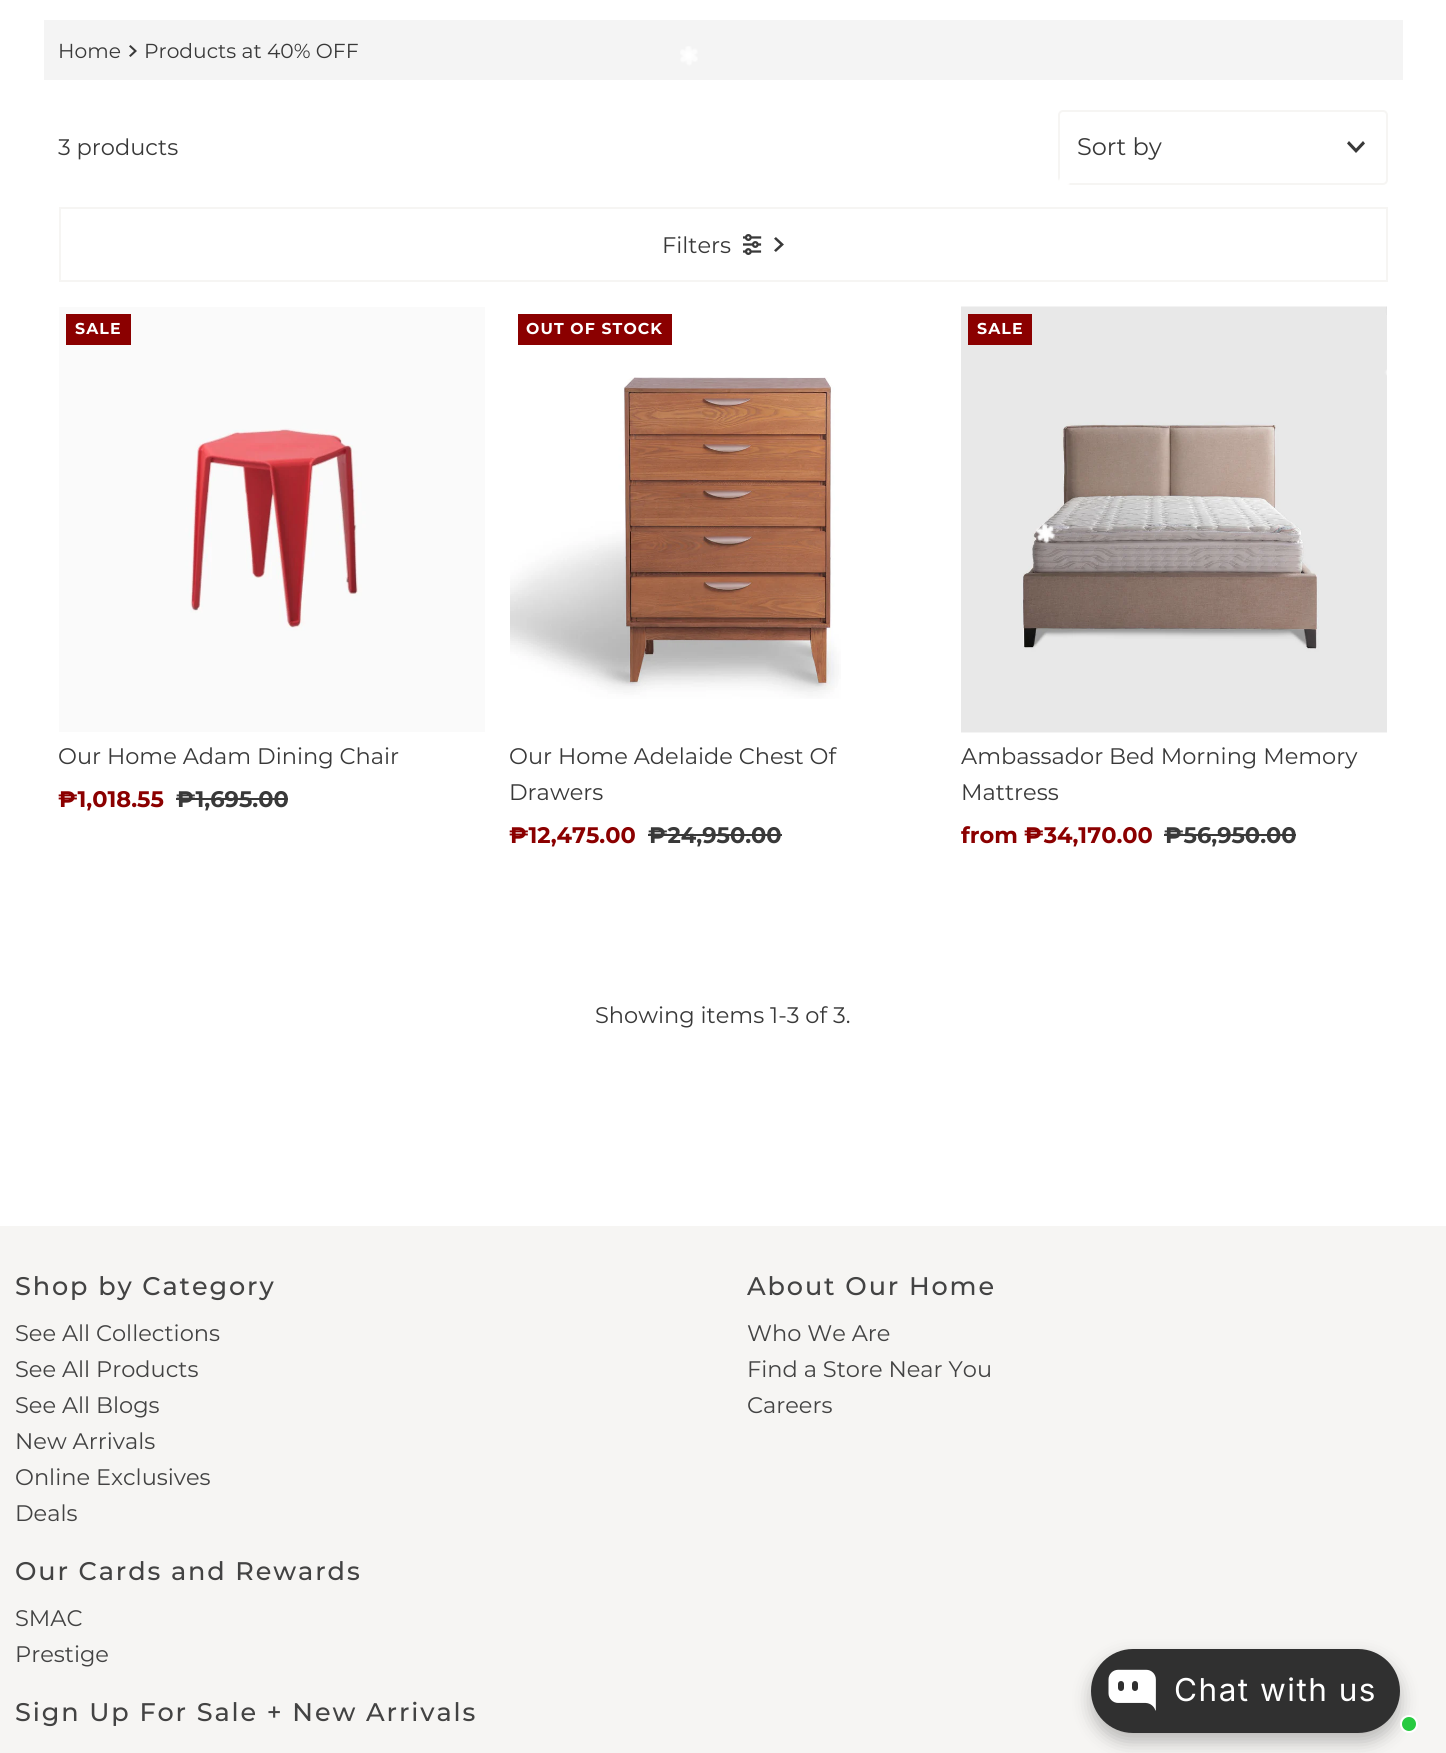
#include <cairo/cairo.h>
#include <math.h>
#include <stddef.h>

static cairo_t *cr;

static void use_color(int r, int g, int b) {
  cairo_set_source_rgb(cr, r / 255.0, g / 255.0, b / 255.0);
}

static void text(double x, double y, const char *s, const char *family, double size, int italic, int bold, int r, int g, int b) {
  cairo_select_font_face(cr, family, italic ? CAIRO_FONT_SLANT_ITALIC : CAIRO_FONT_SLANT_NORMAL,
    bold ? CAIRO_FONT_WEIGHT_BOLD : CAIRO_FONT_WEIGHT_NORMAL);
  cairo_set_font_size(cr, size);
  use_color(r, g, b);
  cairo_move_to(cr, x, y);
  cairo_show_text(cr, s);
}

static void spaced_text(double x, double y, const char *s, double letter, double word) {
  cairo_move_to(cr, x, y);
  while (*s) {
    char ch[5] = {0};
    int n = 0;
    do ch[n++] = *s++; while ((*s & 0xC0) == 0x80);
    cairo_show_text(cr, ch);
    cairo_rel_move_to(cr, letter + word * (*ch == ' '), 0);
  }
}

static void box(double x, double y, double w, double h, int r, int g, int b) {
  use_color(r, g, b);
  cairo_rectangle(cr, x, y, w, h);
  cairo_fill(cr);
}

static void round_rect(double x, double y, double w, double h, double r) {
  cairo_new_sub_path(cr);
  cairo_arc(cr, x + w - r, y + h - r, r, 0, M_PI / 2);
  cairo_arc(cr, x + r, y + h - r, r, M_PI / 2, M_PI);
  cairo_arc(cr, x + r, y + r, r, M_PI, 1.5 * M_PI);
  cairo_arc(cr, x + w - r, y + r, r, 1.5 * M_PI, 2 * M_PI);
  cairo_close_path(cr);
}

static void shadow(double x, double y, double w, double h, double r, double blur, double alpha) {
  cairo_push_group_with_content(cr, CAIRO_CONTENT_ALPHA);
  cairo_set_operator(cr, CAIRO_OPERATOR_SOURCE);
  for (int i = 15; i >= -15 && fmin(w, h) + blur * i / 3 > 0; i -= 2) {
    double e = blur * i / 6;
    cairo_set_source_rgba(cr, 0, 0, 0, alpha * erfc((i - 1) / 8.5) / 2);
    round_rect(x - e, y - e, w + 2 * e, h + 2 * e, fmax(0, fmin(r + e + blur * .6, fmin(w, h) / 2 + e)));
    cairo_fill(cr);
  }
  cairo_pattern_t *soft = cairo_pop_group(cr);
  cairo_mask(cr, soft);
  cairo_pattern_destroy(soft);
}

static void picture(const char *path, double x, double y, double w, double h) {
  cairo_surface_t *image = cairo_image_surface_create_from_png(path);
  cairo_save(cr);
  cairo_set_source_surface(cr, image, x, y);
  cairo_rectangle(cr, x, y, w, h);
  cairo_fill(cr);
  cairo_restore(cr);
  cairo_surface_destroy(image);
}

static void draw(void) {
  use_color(255, 255, 255);
  cairo_paint(cr);
  box(44, 20, 1359, 60, 244, 244, 244);
  picture("img_01.png", 129, 45, 8, 12);
  round_rect(1059, 111, 328, 73, 4);
  use_color(246, 245, 243);
  cairo_stroke(cr);
  use_color(57, 57, 57);
  cairo_new_path(cr);
  cairo_move_to(cr, 1363, 141);
  cairo_line_to(cr, 1356, 148.5);
  cairo_line_to(cr, 1349, 141);
  cairo_line_to(cr, 1347, 143.5);
  cairo_line_to(cr, 1356, 153);
  cairo_line_to(cr, 1365, 143.5);
  cairo_close_path(cr);
  cairo_fill(cr);
  cairo_rectangle(cr, 60, 208, 1327, 73);
  use_color(246, 245, 243);
  cairo_stroke(cr);
  picture("img_02.png", 743, 234, 19, 21);
  picture("img_03.png", 774, 237, 10, 15);
  picture("img_04.png", 59, 307, 426, 425);
  box(66, 314, 65, 31, 139, 0, 0);
  box(176, 798, 112, 2, 57, 57, 57);
  box(518, 314, 154, 31, 139, 0, 0);
  picture("img_05.png", 510, 377, 331, 322);
  box(648, 834, 134, 2, 57, 57, 57);
  picture("img_06.png", 961, 306, 426, 427);
  box(968, 314, 64, 31, 139, 0, 0);
  box(1164, 834, 132, 2, 57, 57, 57);
  box(0, 1226, 1446, 527, 246, 245, 243);
  use_color(0, 0, 0);
  shadow(1091, 1658, 309, 84, 42, 9, 0.25);
  use_color(48, 48, 48);
  round_rect(1091, 1649, 309, 84, 42);
  cairo_fill(cr);
  picture("img_08.png", 1108, 1669, 48, 42);
  use_color(39, 202, 64);
  cairo_arc(cr, 1409, 1724, 8, 0, 2 * M_PI);
  cairo_fill_preserve(cr);
  use_color(255, 255, 255);
  cairo_stroke(cr);
  text(58, 58, "Home", "Montserrat", 20.25, 0, 0, 57, 57, 57);
  text(144, 58, "Products at 40% OFF", "Montserrat", 20.25, 0, 0, 57, 57, 57);
  text(58, 155, "3 products", "Montserrat", 22.5, 0, 0, 57, 57, 57);
  text(1077, 155, "Sort by", "Montserrat", 24, 0, 0, 57, 57, 57);
  text(662, 253, "Filters", "Montserrat", 22.5, 0, 0, 57, 57, 57);
  cairo_select_font_face(cr, "Montserrat Thin", CAIRO_FONT_SLANT_NORMAL, CAIRO_FONT_WEIGHT_NORMAL);
  cairo_set_font_size(cr, 15.75);
  use_color(255, 255, 255);
  spaced_text(75, 334, "SALE", 1.1, 0);
  text(58, 764, "Our Home Adam Dining Chair", "Montserrat", 22.5, 0, 0, 57, 57, 57);
  text(58, 807, "₱1,018.55", "Montserrat Thin", 22.5, 0, 0, 139, 0, 0);
  text(176, 807, "₱1,695.00", "Montserrat Thin", 22.5, 0, 0, 57, 57, 57);
  cairo_set_font_size(cr, 15.75);
  use_color(255, 255, 255);
  spaced_text(526, 334, "OUT OF STOCK", 1.1, 0);
  text(509, 764, "Our Home Adelaide Chest Of", "Montserrat", 22.5, 0, 0, 57, 57, 57);
  text(509, 800, "Drawers", "Montserrat", 22.5, 0, 0, 57, 57, 57);
  text(509, 843, "₱12,475.00", "Montserrat Thin", 22.5, 0, 0, 139, 0, 0);
  text(648, 843, "₱24,950.00", "Montserrat Thin", 22.5, 0, 0, 57, 57, 57);
  cairo_set_font_size(cr, 15.75);
  use_color(255, 255, 255);
  spaced_text(977, 334, "SALE", 1.1, 0);
  text(961, 764, "Ambassador Bed Morning Memory", "Montserrat", 22.5, 0, 0, 57, 57, 57);
  text(961, 800, "Mattress", "Montserrat", 22.5, 0, 0, 57, 57, 57);
  text(961, 843, "from ₱34,170.00", "Montserrat Thin", 22.5, 0, 0, 139, 0, 0);
  text(1164, 843, "₱56,950.00", "Montserrat Thin", 22.5, 0, 0, 57, 57, 57);
  text(595, 1023, "Showing items 1-3 of 3.", "Montserrat", 22.5, 0, 0, 57, 57, 57);
  cairo_select_font_face(cr, "Montserrat Medium", CAIRO_FONT_SLANT_NORMAL, CAIRO_FONT_WEIGHT_NORMAL);
  cairo_set_font_size(cr, 25.5);
  use_color(67, 67, 67);
  spaced_text(15, 1295, "Shop by Category", 1.9, 0);
  text(15, 1341, "See All Collections", "Montserrat", 22.5, 0, 0, 67, 67, 67);
  text(15, 1377, "See All Products", "Montserrat", 22.5, 0, 0, 67, 67, 67);
  text(15, 1413, "See All Blogs", "Montserrat", 22.5, 0, 0, 67, 67, 67);
  text(15, 1449, "New Arrivals", "Montserrat", 22.5, 0, 0, 67, 67, 67);
  text(15, 1485, "Online Exclusives", "Montserrat", 22.5, 0, 0, 67, 67, 67);
  text(15, 1521, "Deals", "Montserrat", 22.5, 0, 0, 67, 67, 67);
  cairo_select_font_face(cr, "Montserrat Medium", CAIRO_FONT_SLANT_NORMAL, CAIRO_FONT_WEIGHT_NORMAL);
  cairo_set_font_size(cr, 25.5);
  spaced_text(747, 1295, "About Our Home", 1.9, 0);
  text(747, 1341, "Who We Are", "Montserrat", 22.5, 0, 0, 67, 67, 67);
  text(747, 1377, "Find a Store Near You", "Montserrat", 22.5, 0, 0, 67, 67, 67);
  text(747, 1413, "Careers", "Montserrat", 22.5, 0, 0, 67, 67, 67);
  cairo_select_font_face(cr, "Montserrat Medium", CAIRO_FONT_SLANT_NORMAL, CAIRO_FONT_WEIGHT_NORMAL);
  cairo_set_font_size(cr, 25.5);
  spaced_text(15, 1580, "Our Cards and Rewards", 1.9, 0);
  text(15, 1626, "SMAC", "Montserrat", 22.5, 0, 0, 67, 67, 67);
  text(15, 1662, "Prestige", "Montserrat", 22.5, 0, 0, 67, 67, 67);
  cairo_select_font_face(cr, "Montserrat Medium", CAIRO_FONT_SLANT_NORMAL, CAIRO_FONT_WEIGHT_NORMAL);
  cairo_set_font_size(cr, 25.5);
  spaced_text(15, 1721, "Sign Up For Sale + New Arrivals", 1.9, 0);
  picture("img_07.png", 680, 46, 707, 498);
  cairo_select_font_face(cr, "Inter", CAIRO_FONT_SLANT_NORMAL, CAIRO_FONT_WEIGHT_NORMAL);
  cairo_set_font_size(cr, 31.5);
  use_color(255, 255, 255);
  spaced_text(1174, 1701, "Chat with us", 1.5, 0);
}

int main(void) {
  cairo_surface_t *surface = cairo_image_surface_create(CAIRO_FORMAT_RGB24, 1446, 1753);
  cr = cairo_create(surface);
  cairo_font_options_t *options = cairo_font_options_create();
  cairo_font_options_set_hint_metrics(options, CAIRO_HINT_METRICS_OFF);
  cairo_font_options_set_hint_style(options, CAIRO_HINT_STYLE_NONE);
  cairo_set_font_options(cr, options);
  cairo_set_miter_limit(cr, 4);
  draw();
  cairo_surface_write_to_png(surface, "out.png");
  cairo_font_options_destroy(options);
  cairo_destroy(cr);
  cairo_surface_destroy(surface);
  return 0;
}
